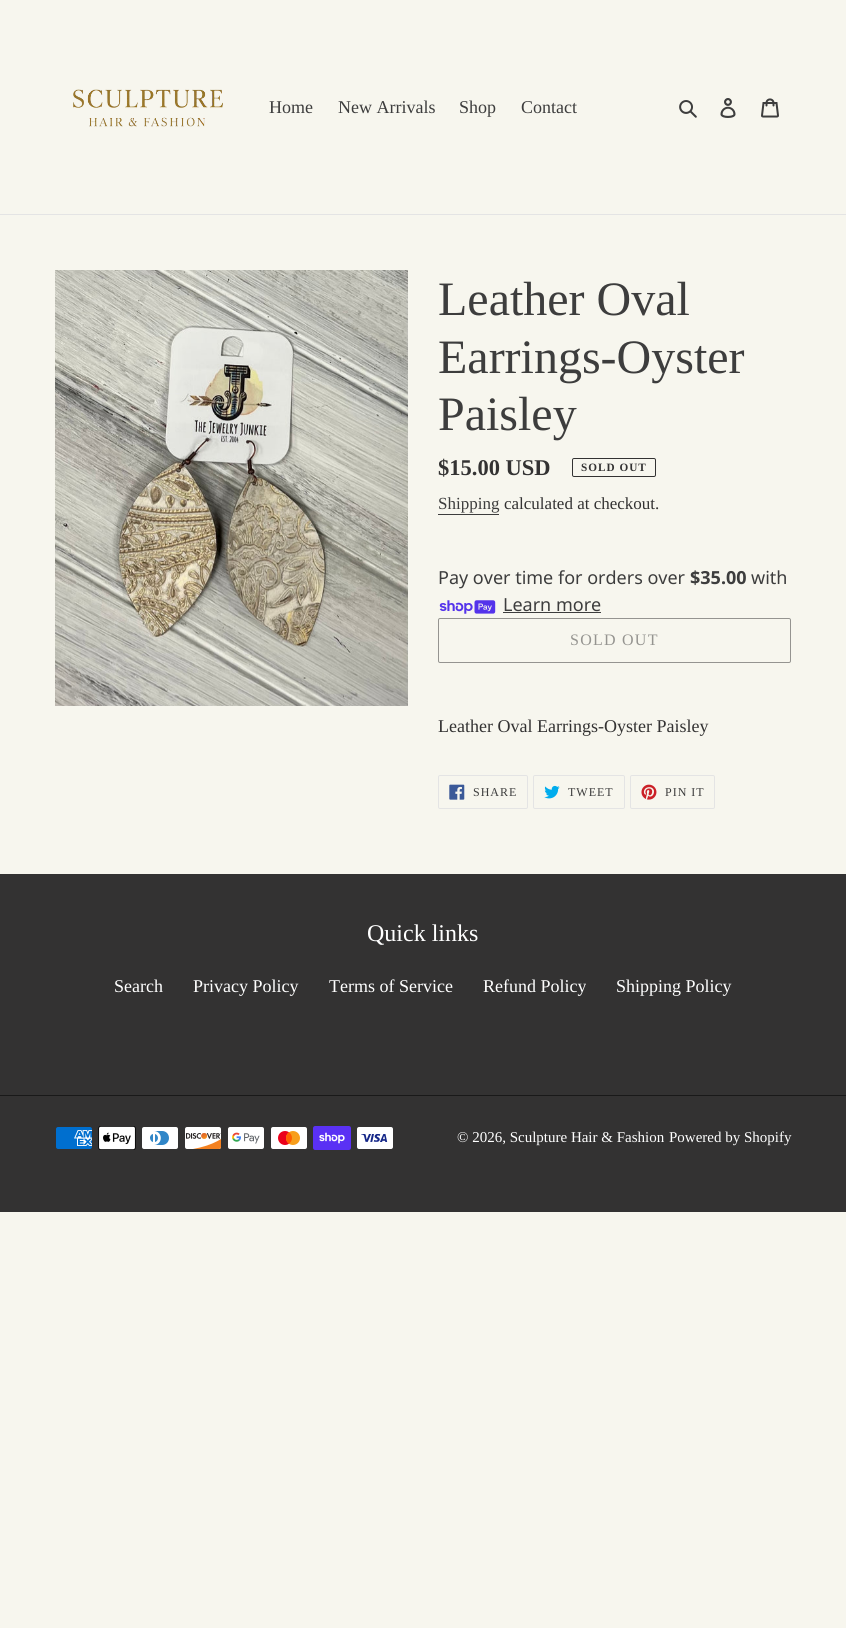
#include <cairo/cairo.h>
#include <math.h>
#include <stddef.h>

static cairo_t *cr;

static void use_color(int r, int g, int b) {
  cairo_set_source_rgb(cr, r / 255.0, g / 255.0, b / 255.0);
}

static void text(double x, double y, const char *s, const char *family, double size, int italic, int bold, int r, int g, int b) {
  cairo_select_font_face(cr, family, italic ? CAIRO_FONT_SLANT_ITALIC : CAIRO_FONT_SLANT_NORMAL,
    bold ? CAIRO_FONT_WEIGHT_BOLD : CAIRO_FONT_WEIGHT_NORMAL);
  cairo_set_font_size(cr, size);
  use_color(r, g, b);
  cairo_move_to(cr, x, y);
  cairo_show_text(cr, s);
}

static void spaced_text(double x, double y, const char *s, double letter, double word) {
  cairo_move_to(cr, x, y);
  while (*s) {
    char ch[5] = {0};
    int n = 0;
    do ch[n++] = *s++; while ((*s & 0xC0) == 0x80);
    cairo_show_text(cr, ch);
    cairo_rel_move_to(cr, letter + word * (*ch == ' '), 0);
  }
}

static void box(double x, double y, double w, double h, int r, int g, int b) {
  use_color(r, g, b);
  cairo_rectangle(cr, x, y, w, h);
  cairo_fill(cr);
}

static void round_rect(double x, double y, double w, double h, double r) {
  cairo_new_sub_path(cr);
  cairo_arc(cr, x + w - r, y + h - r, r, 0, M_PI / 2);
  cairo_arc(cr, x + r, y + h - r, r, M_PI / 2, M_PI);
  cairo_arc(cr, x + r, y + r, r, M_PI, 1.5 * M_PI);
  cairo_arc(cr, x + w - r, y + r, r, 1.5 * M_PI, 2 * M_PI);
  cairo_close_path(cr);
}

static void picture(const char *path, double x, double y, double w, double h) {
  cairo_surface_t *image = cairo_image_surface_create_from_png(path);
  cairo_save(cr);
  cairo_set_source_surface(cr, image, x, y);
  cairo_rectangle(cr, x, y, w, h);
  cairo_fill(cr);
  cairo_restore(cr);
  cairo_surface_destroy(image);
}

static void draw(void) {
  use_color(247, 246, 238);
  cairo_paint(cr);
  box(0, 214, 846, 1, 228, 228, 228);
  picture("img_01.png", 73, 89, 150, 38);
  picture("img_02.png", 679, 100, 18, 18);
  picture("img_03.png", 720, 98, 16, 20);
  picture("img_04.png", 761, 98, 18, 20);
  picture("img_05.png", 55, 270, 353, 436);
  round_rect(572.5, 458.5, 83, 18, 1.5);
  use_color(51, 50, 50);
  cairo_set_line_width(cr, 1);
  cairo_stroke(cr);
  box(438, 514, 61, 1, 61, 61, 61);
  picture("img_06.png", 439, 600, 57, 14);
  box(503, 612, 98, 1, 61, 61, 61);
  round_rect(438.5, 618.5, 352, 44, 1.5);
  use_color(149, 148, 144);
  cairo_stroke(cr);
  round_rect(438.5, 775.5, 89, 33, 1.5);
  use_color(228, 228, 228);
  cairo_stroke(cr);
  picture("img_07.png", 449, 784, 16, 16);
  round_rect(533.5, 775.5, 91, 33, 1.5);
  cairo_stroke(cr);
  picture("img_08.png", 544, 785, 16, 14);
  round_rect(630.5, 775.5, 84, 33, 1.5);
  cairo_stroke(cr);
  picture("img_09.png", 641, 784, 16, 16);
  box(0, 874, 846, 338, 51, 50, 50);
  box(0, 1095, 846, 1, 25, 25, 25);
  picture("img_10.png", 56, 1127, 36, 22);
  picture("img_11.png", 98, 1126, 38, 24);
  picture("img_12.png", 142, 1127, 36, 22);
  picture("img_13.png", 185, 1127, 36, 22);
  picture("img_14.png", 228, 1127, 36, 22);
  picture("img_15.png", 271, 1127, 36, 22);
  picture("img_16.png", 313, 1126, 38, 24);
  picture("img_17.png", 357, 1127, 36, 22);
  text(269, 113, "Home", "Liberation Serif", 18, 0, 0, 61, 61, 61);
  text(338, 113, "New Arrivals", "Liberation Serif", 18, 0, 0, 61, 61, 61);
  text(459, 113, "Shop", "Liberation Serif", 18, 0, 0, 61, 61, 61);
  text(521, 113, "Contact", "Liberation Serif", 18, 0, 0, 61, 61, 61);
  text(438, 315, "Leather Oval", "Liberation Serif", 48, 0, 0, 61, 61, 61);
  text(438, 373, "Earrings-Oyster", "Liberation Serif", 48, 0, 0, 61, 61, 61);
  text(438, 430, "Paisley", "Liberation Serif", 48, 0, 0, 61, 61, 61);
  text(438, 475, "$15.00 USD", "Liberation Serif", 22.5, 0, 1, 51, 50, 50);
  cairo_set_font_size(cr, 11.25);
  spaced_text(581, 471, "SOLD OUT", 1, 0);
  text(438, 509, "Shipping", "Liberation Serif", 17, 0, 0, 61, 61, 61);
  text(504, 509, "calculated at checkout.", "Liberation Serif", 17, 0, 0, 51, 50, 50);
  text(438, 584, "Pay over time for orders over", "Noto Sans", 18, 0, 0, 61, 61, 61);
  text(690, 584, "$35.00", "Noto Sans", 18, 0, 1, 61, 61, 61);
  text(751, 584, "with", "Noto Sans", 18, 0, 0, 61, 61, 61);
  text(503, 611, "Learn more", "Noto Sans", 18, 0, 0, 61, 61, 61);
  cairo_select_font_face(cr, "Liberation Serif", CAIRO_FONT_SLANT_NORMAL, CAIRO_FONT_WEIGHT_NORMAL);
  cairo_set_font_size(cr, 16);
  use_color(149, 148, 144);
  spaced_text(570, 645, "SOLD OUT", 1.25, 0);
  text(438, 732, "Leather Oval Earrings-Oyster Paisley", "Liberation Serif", 18, 0, 0, 51, 50, 50);
  cairo_set_font_size(cr, 12);
  use_color(61, 61, 61);
  spaced_text(473, 796, "SHARE", 1, 0);
  spaced_text(568, 796, "TWEET", 1, 0);
  spaced_text(665, 796, "PIN IT", 1, 0);
  text(367, 941, "Quick links", "Liberation Serif", 24, 0, 0, 255, 255, 255);
  text(114, 992, "Search", "Liberation Serif", 18, 0, 0, 255, 255, 255);
  text(193, 992, "Privacy Policy", "Liberation Serif", 18, 0, 0, 255, 255, 255);
  text(329, 992, "Terms of Service", "Liberation Serif", 18, 0, 0, 255, 255, 255);
  text(483, 992, "Refund Policy", "Liberation Serif", 18, 0, 0, 255, 255, 255);
  text(616, 992, "Shipping Policy", "Liberation Serif", 18, 0, 0, 255, 255, 255);
  text(457, 1142, "© 2026, Sculpture Hair & Fashion", "Liberation Serif", 15, 0, 0, 255, 255, 255);
  text(669, 1142, "Powered by Shopify", "Liberation Serif", 15, 0, 0, 255, 255, 255);
}

int main(void) {
  cairo_surface_t *surface = cairo_image_surface_create(CAIRO_FORMAT_RGB24, 846, 1628);
  cr = cairo_create(surface);
  cairo_font_options_t *options = cairo_font_options_create();
  cairo_font_options_set_hint_metrics(options, CAIRO_HINT_METRICS_OFF);
  cairo_font_options_set_hint_style(options, CAIRO_HINT_STYLE_NONE);
  cairo_set_font_options(cr, options);
  cairo_set_miter_limit(cr, 4);
  draw();
  cairo_surface_write_to_png(surface, "out.png");
  cairo_font_options_destroy(options);
  cairo_destroy(cr);
  cairo_surface_destroy(surface);
  return 0;
}
